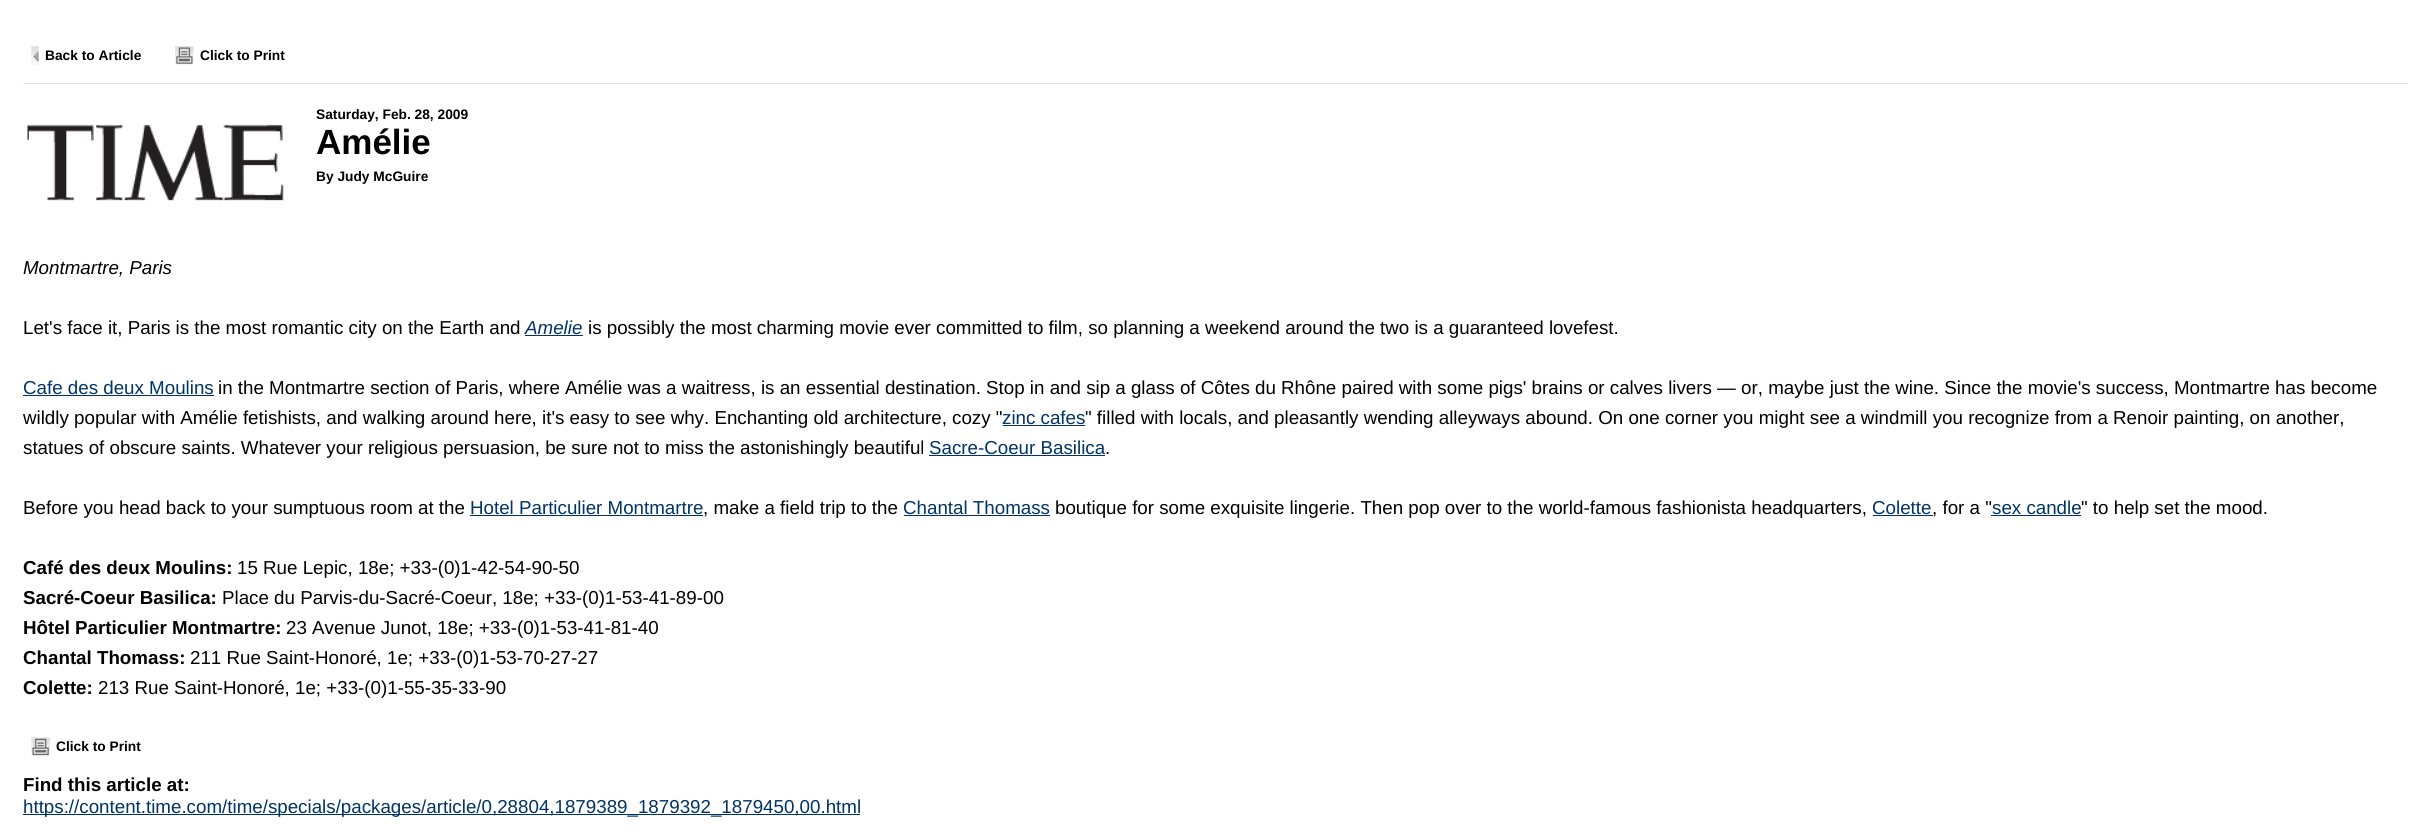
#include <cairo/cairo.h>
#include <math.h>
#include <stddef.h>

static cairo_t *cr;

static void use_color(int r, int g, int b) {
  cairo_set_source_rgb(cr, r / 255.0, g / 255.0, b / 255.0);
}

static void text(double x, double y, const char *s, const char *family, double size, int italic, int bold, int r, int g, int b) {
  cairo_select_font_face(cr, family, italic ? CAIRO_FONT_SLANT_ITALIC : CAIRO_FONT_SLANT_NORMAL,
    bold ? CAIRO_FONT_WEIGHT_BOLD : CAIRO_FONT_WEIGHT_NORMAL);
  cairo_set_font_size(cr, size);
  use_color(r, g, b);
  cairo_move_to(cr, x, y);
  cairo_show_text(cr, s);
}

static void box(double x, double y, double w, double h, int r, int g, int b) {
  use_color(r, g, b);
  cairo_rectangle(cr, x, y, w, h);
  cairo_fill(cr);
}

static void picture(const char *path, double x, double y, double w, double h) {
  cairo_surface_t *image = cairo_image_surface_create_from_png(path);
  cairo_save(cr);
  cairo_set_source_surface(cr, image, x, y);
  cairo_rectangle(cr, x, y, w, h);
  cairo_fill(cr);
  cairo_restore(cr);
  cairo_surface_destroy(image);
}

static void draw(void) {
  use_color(255, 255, 255);
  cairo_paint(cr);
  picture("img_01.png", 31, 46, 8, 19);
  picture("img_02.png", 175, 46, 19, 19);
  box(23, 83, 2385, 1, 229, 229, 229);
  picture("img_03.png", 27, 124, 257, 77);
  box(525, 335, 58, 1, 0, 51, 102);
  box(23, 395, 191, 1, 0, 51, 102);
  box(1003, 425, 82, 1, 0, 51, 102);
  box(929, 455, 176, 1, 0, 51, 102);
  box(470, 515, 233, 1, 0, 51, 102);
  box(904, 515, 146, 1, 0, 51, 102);
  box(1873, 515, 60, 1, 0, 51, 102);
  box(1991, 515, 90, 1, 0, 51, 102);
  picture("img_04.png", 31, 737, 19, 19);
  box(23, 814, 837, 1, 0, 51, 102);
  text(45, 60, "Back to Article", "Liberation Sans", 13.75, 0, 1, 0, 0, 0);
  text(200, 60, "Click to Print", "Liberation Sans", 13.75, 0, 1, 0, 0, 0);
  text(316, 119, "Saturday, Feb. 28, 2009", "Liberation Sans", 13.75, 0, 1, 0, 0, 0);
  text(316, 154, "Amélie", "Liberation Sans", 35, 0, 1, 0, 0, 0);
  text(316, 181, "By Judy McGuire", "Liberation Sans", 13.75, 0, 1, 0, 0, 0);
  text(23, 274, "Montmartre, Paris", "Liberation Sans", 18.75, 1, 0, 0, 0, 0);
  text(23, 334, "Let's face it, Paris is the most romantic city on the Earth and", "Liberation Sans", 18.75, 0, 0, 0, 0, 0);
  text(525, 334, "Amelie", "Liberation Sans", 18.75, 1, 0, 0, 51, 102);
  text(588, 334, "is possibly the most charming movie ever committed to film, so planning a weekend around the two is a guaranteed lovefest.", "Liberation Sans", 18.75, 0, 0, 0, 0, 0);
  text(23, 394, "Cafe des deux Moulins", "Liberation Sans", 18.75, 0, 0, 0, 51, 102);
  text(218, 394, "in the Montmartre section of Paris, where Amélie was a waitress, is an essential destination. Stop in and sip a glass of Côtes du Rhône paired with some pigs' brains or calves livers — or, maybe just the wine. Since the movie's success, Montmartre has become", "Liberation Sans", 18.75, 0, 0, 0, 0, 0);
  text(23, 424, "wildly popular with Amélie fetishists, and walking around here, it's easy to see why. Enchanting old architecture, cozy \"", "Liberation Sans", 18.75, 0, 0, 0, 0, 0);
  text(1002, 424, "zinc cafes", "Liberation Sans", 18.75, 0, 0, 0, 51, 102);
  text(1085, 424, "\" filled with locals, and pleasantly wending alleyways abound. On one corner you might see a windmill you recognize from a Renoir painting, on another,", "Liberation Sans", 18.75, 0, 0, 0, 0, 0);
  text(23, 454, "statues of obscure saints. Whatever your religious persuasion, be sure not to miss the astonishingly beautiful", "Liberation Sans", 18.75, 0, 0, 0, 0, 0);
  text(929, 454, "Sacre-Coeur Basilica", "Liberation Sans", 18.75, 0, 0, 0, 51, 102);
  text(1105, 454, ".", "Liberation Sans", 18.75, 0, 0, 0, 0, 0);
  text(23, 514, "Before you head back to your sumptuous room at the", "Liberation Sans", 18.75, 0, 0, 0, 0, 0);
  text(470, 514, "Hotel Particulier Montmartre", "Liberation Sans", 18.75, 0, 0, 0, 51, 102);
  text(703, 514, ", make a field trip to the", "Liberation Sans", 18.75, 0, 0, 0, 0, 0);
  text(903, 514, "Chantal Thomass", "Liberation Sans", 18.75, 0, 0, 0, 51, 102);
  text(1055, 514, "boutique for some exquisite lingerie. Then pop over to the world-famous fashionista headquarters,", "Liberation Sans", 18.75, 0, 0, 0, 0, 0);
  text(1872, 514, "Colette", "Liberation Sans", 18.75, 0, 0, 0, 51, 102);
  text(1932, 514, ", for a \"", "Liberation Sans", 18.75, 0, 0, 0, 0, 0);
  text(1992, 514, "sex candle", "Liberation Sans", 18.75, 0, 0, 0, 51, 102);
  text(2081, 514, "\" to help set the mood.", "Liberation Sans", 18.75, 0, 0, 0, 0, 0);
  text(23, 574, "Café des deux Moulins:", "Liberation Sans", 18.75, 0, 1, 0, 0, 0);
  text(237, 574, "15 Rue Lepic, 18e; +33-(0)1-42-54-90-50", "Liberation Sans", 18.75, 0, 0, 0, 0, 0);
  text(23, 604, "Sacré-Coeur Basilica:", "Liberation Sans", 18.75, 0, 1, 0, 0, 0);
  text(222, 604, "Place du Parvis-du-Sacré-Coeur, 18e; +33-(0)1-53-41-89-00", "Liberation Sans", 18.75, 0, 0, 0, 0, 0);
  text(23, 634, "Hôtel Particulier Montmartre:", "Liberation Sans", 18.75, 0, 1, 0, 0, 0);
  text(286, 634, "23 Avenue Junot, 18e; +33-(0)1-53-41-81-40", "Liberation Sans", 18.75, 0, 0, 0, 0, 0);
  text(23, 664, "Chantal Thomass:", "Liberation Sans", 18.75, 0, 1, 0, 0, 0);
  text(190, 664, "211 Rue Saint-Honoré, 1e; +33-(0)1-53-70-27-27", "Liberation Sans", 18.75, 0, 0, 0, 0, 0);
  text(23, 694, "Colette:", "Liberation Sans", 18.75, 0, 1, 0, 0, 0);
  text(98, 694, "213 Rue Saint-Honoré, 1e; +33-(0)1-55-35-33-90", "Liberation Sans", 18.75, 0, 0, 0, 0, 0);
  text(56, 751, "Click to Print", "Liberation Sans", 13.75, 0, 1, 0, 0, 0);
  text(23, 791, "Find this article at:", "Liberation Sans", 18.75, 0, 1, 0, 0, 0);
  text(23, 813, "https://content.time.com/time/specials/packages/article/0,28804,1879389_1879392_1879450,00.html", "Liberation Sans", 18.75, 0, 0, 0, 51, 102);
}

int main(void) {
  cairo_surface_t *surface = cairo_image_surface_create(CAIRO_FORMAT_RGB24, 2430, 831);
  cr = cairo_create(surface);
  cairo_font_options_t *options = cairo_font_options_create();
  cairo_font_options_set_hint_metrics(options, CAIRO_HINT_METRICS_OFF);
  cairo_font_options_set_hint_style(options, CAIRO_HINT_STYLE_NONE);
  cairo_set_font_options(cr, options);
  cairo_set_miter_limit(cr, 4);
  draw();
  cairo_surface_write_to_png(surface, "out.png");
  cairo_font_options_destroy(options);
  cairo_destroy(cr);
  cairo_surface_destroy(surface);
  return 0;
}
